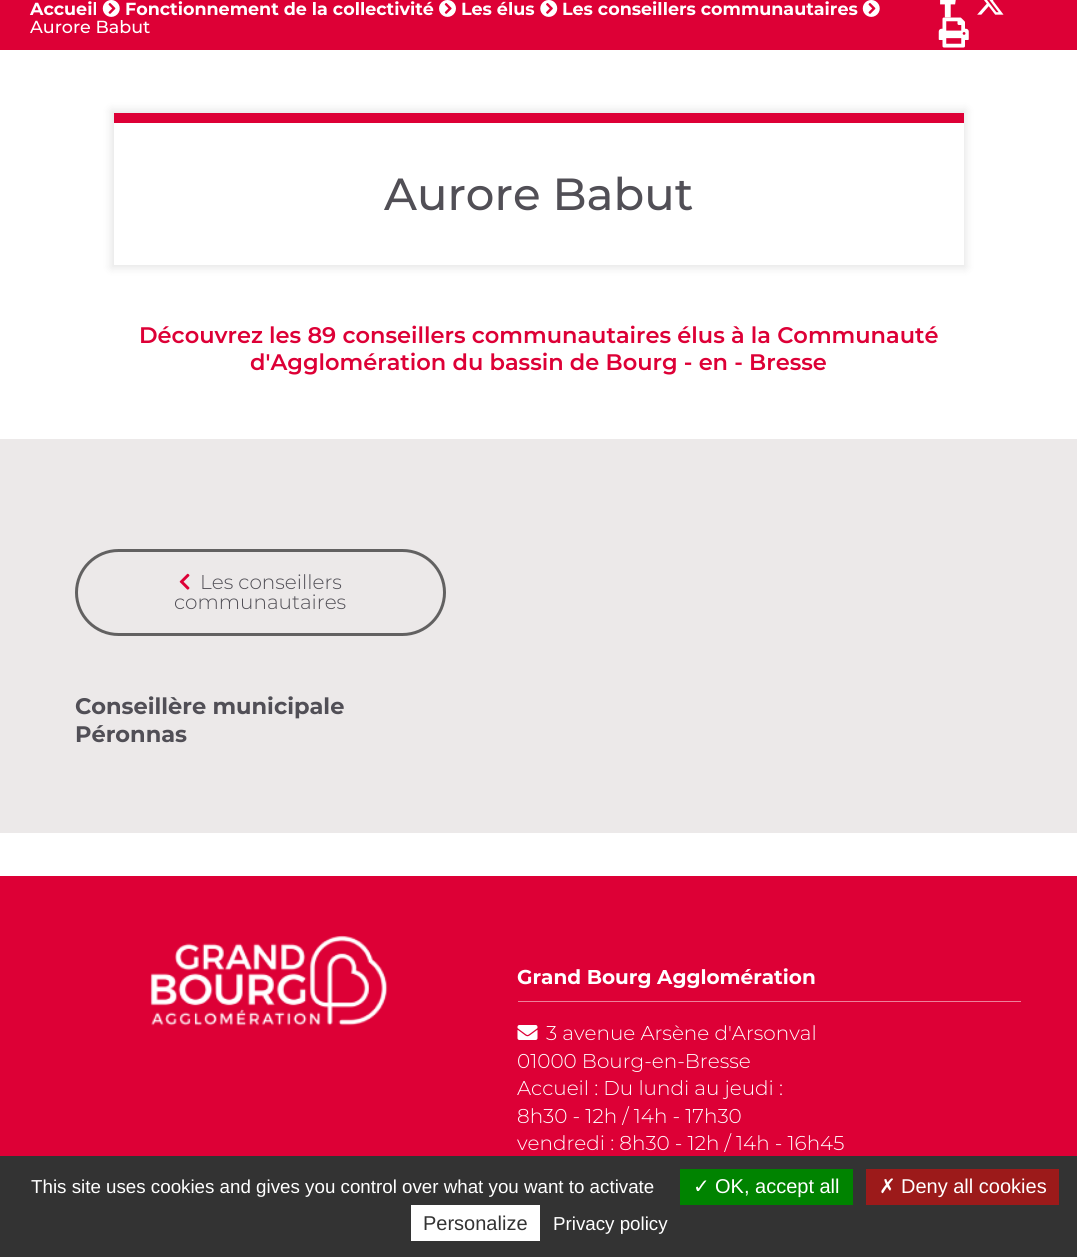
#include <cairo.h>
#include <math.h>
#include <stddef.h>


static void rgb(cairo_t *cr, int r, int g, int b)
{
	cairo_set_source_rgb(cr, r / 255.0, g / 255.0, b / 255.0);
}

static void face(cairo_t *cr, const char *family, double size, int italic, int bold)
{
	cairo_select_font_face(cr, family, italic ? CAIRO_FONT_SLANT_ITALIC : CAIRO_FONT_SLANT_NORMAL,
		bold ? CAIRO_FONT_WEIGHT_BOLD : CAIRO_FONT_WEIGHT_NORMAL);
	cairo_set_font_size(cr, size);
}

static void label(cairo_t *cr, double x, double y, const char *s)
{
	cairo_move_to(cr, x, y);
	cairo_show_text(cr, s);
}

static void rect(cairo_t *cr, double x, double y, double w, double h)
{
	cairo_rectangle(cr, x, y, w, h);
	cairo_fill(cr);
}

static void rrect(cairo_t *cr, double x, double y, double w, double h, double r)
{
	cairo_new_sub_path(cr);
	cairo_arc(cr, x + w - r, y + h - r, r, 0, M_PI / 2);
	cairo_arc(cr, x + r, y + h - r, r, M_PI / 2, M_PI);
	cairo_arc(cr, x + r, y + r, r, M_PI, 1.5 * M_PI);
	cairo_arc(cr, x + w - r, y + r, r, 1.5 * M_PI, 2 * M_PI);
	cairo_close_path(cr);
}

static void soft_shadow(cairo_t *cr, double x, double y, double w, double h, double r, double blur, double alpha)
{
	cairo_push_group_with_content(cr, CAIRO_CONTENT_ALPHA);
	cairo_set_operator(cr, CAIRO_OPERATOR_SOURCE);
	for (int i = 15; i >= -15 && fmin(w, h) + blur * i / 3 > 0; i -= 2) {
		double e = blur * i / 6;
		cairo_set_source_rgba(cr, 0, 0, 0, alpha * erfc((i - 1) / 8.5) / 2);
		rrect(cr, x - e, y - e, w + 2 * e, h + 2 * e, fmax(0, fmin(r + e + blur * .6, fmin(w, h) / 2 + e)));
		cairo_fill(cr);
	}
	cairo_pattern_t *soft = cairo_pop_group(cr);
	cairo_mask(cr, soft);
	cairo_pattern_destroy(soft);
}

static void image(cairo_t *cr, const char *path, double x, double y, double w, double h)
{
	cairo_surface_t *image = cairo_image_surface_create_from_png(path);
	cairo_save(cr);
	cairo_set_source_surface(cr, image, x, y);
	cairo_rectangle(cr, x, y, w, h);
	cairo_fill(cr);
	cairo_restore(cr);
	cairo_surface_destroy(image);
}

static void draw(cairo_t *cr) {
	rgb(cr, 255, 255, 255);
	cairo_paint(cr);
	rgb(cr, 221, 0, 54);
	rect(cr, 0, 0, 1077, 50);
	face(cr, "Montserrat", 17.5, 0, 1);
	rgb(cr, 255, 255, 255);
	label(cr, 30, 15, "Accueil");
	image(cr, "image0.png", 102, 0, 18, 17);
	label(cr, 125, 15, "Fonctionnement de la collectivité");
	image(cr, "image1.png", 439, 0, 17, 17);
	label(cr, 461, 15, "Les élus");
	image(cr, "image2.png", 540, 0, 18, 17);
	label(cr, 562, 15, "Les conseillers communautaires");
	image(cr, "image0.png", 862, 0, 18, 17);
	face(cr, "Montserrat Medium", 17.5, 0, 0);
	label(cr, 30, 33, "Aurore Babut");
	image(cr, "image3.png", 940, 0, 16, 18);
	image(cr, "image4.png", 977, 0, 27, 15);
	image(cr, "image5.png", 938, 17, 31, 31);
	rgb(cr, 0, 0, 0);
	soft_shadow(cr, 111, 110, 855, 158, 0, 4.5, 0.1);
	rgb(cr, 255, 255, 255);
	rect(cr, 114, 123, 850, 142);
	rgb(cr, 221, 0, 54);
	rect(cr, 114, 113, 850, 10);
	face(cr, "Montserrat Medium", 45, 0, 0);
	rgb(cr, 81, 79, 86);
	label(cr, 384, 210, "Aurore Babut");
	face(cr, "Montserrat SemiBold", 22.5, 0, 0);
	rgb(cr, 221, 0, 54);
	label(cr, 139, 343, "Découvrez les 89 conseillers communautaires élus à la Communauté");
	label(cr, 250, 370, "d'Agglomération du bassin de Bourg - en - Bresse");
	rgb(cr, 236, 233, 233);
	rect(cr, 0, 439, 1077, 394);
	rrect(cr, 76.5, 550.5, 368, 84, 42);
	rgb(cr, 98, 97, 97);
	cairo_set_line_width(cr, 3);
	cairo_stroke(cr);
	image(cr, "image6.png", 179, 573, 11, 17);
	face(cr, "Montserrat Light", 20, 0, 0);
	rgb(cr, 81, 79, 86);
	label(cr, 200, 589, "Les conseillers");
	label(cr, 174, 609, "communautaires");
	face(cr, "Montserrat", 22.5, 0, 1);
	label(cr, 75, 714, "Conseillère municipale");
	label(cr, 75, 742, "Péronnas");
	rgb(cr, 221, 0, 54);
	rect(cr, 0, 876, 1077, 280);
	image(cr, "image7.png", 150, 935, 238, 91);
	rgb(cr, 238, 128, 155);
	rect(cr, 518, 1001, 503, 1);
	face(cr, "Montserrat", 20, 0, 1);
	rgb(cr, 255, 255, 255);
	label(cr, 517, 984, "Grand Bourg Agglomération");
	image(cr, "image8.png", 517, 1025, 21, 15);
	face(cr, "Montserrat Light", 20, 0, 0);
	label(cr, 546, 1040, "3 avenue Arsène d'Arsonval");
	label(cr, 517, 1068, "01000 Bourg-en-Bresse");
	label(cr, 517, 1095, "Accueil : Du lundi au jeudi :");
	label(cr, 517, 1123, "8h30 - 12h / 14h - 17h30");
	label(cr, 517, 1150, "vendredi : 8h30 - 12h / 14h - 16h45");
	rgb(cr, 51, 51, 51);
	rect(cr, 0, 1156, 1077, 101);
	face(cr, "Liberation Sans", 18.75, 0, 0);
	rgb(cr, 255, 255, 255);
	label(cr, 31, 1193, "This site uses cookies and gives you control over what you want to activate");
	rgb(cr, 0, 131, 0);
	rect(cr, 680, 1169, 173, 36);
	face(cr, "DejaVu Sans", 20, 0, 0);
	rgb(cr, 255, 255, 255);
	label(cr, 693, 1193, "✓");
	face(cr, "Liberation Sans", 20, 0, 0);
	label(cr, 715, 1193, "OK, accept all");
	rgb(cr, 156, 26, 26);
	rect(cr, 866, 1169, 193, 36);
	face(cr, "DejaVu Sans", 20, 0, 0);
	rgb(cr, 255, 255, 255);
	label(cr, 879, 1193, "✗");
	face(cr, "Liberation Sans", 20, 0, 0);
	label(cr, 901, 1193, "Deny all cookies");
	rect(cr, 411, 1205, 129, 36);
	rgb(cr, 51, 51, 51);
	label(cr, 423, 1230, "Personalize");
	face(cr, "Liberation Sans", 18.75, 0, 0);
	rgb(cr, 255, 255, 255);
	label(cr, 553, 1230, "Privacy policy");
}

int main(void) {
	cairo_surface_t *surface = cairo_image_surface_create(CAIRO_FORMAT_RGB24, 1077, 1257);
	cairo_t *cr = cairo_create(surface);
	cairo_font_options_t *options = cairo_font_options_create();
	cairo_font_options_set_hint_metrics(options, CAIRO_HINT_METRICS_OFF);
	cairo_font_options_set_hint_style(options, CAIRO_HINT_STYLE_NONE);
	cairo_set_font_options(cr, options);
	cairo_set_miter_limit(cr, 4);
	draw(cr);
	cairo_surface_write_to_png(surface, "render.png");
	cairo_font_options_destroy(options);
	cairo_destroy(cr);
	cairo_surface_destroy(surface);
	return 0;
}
